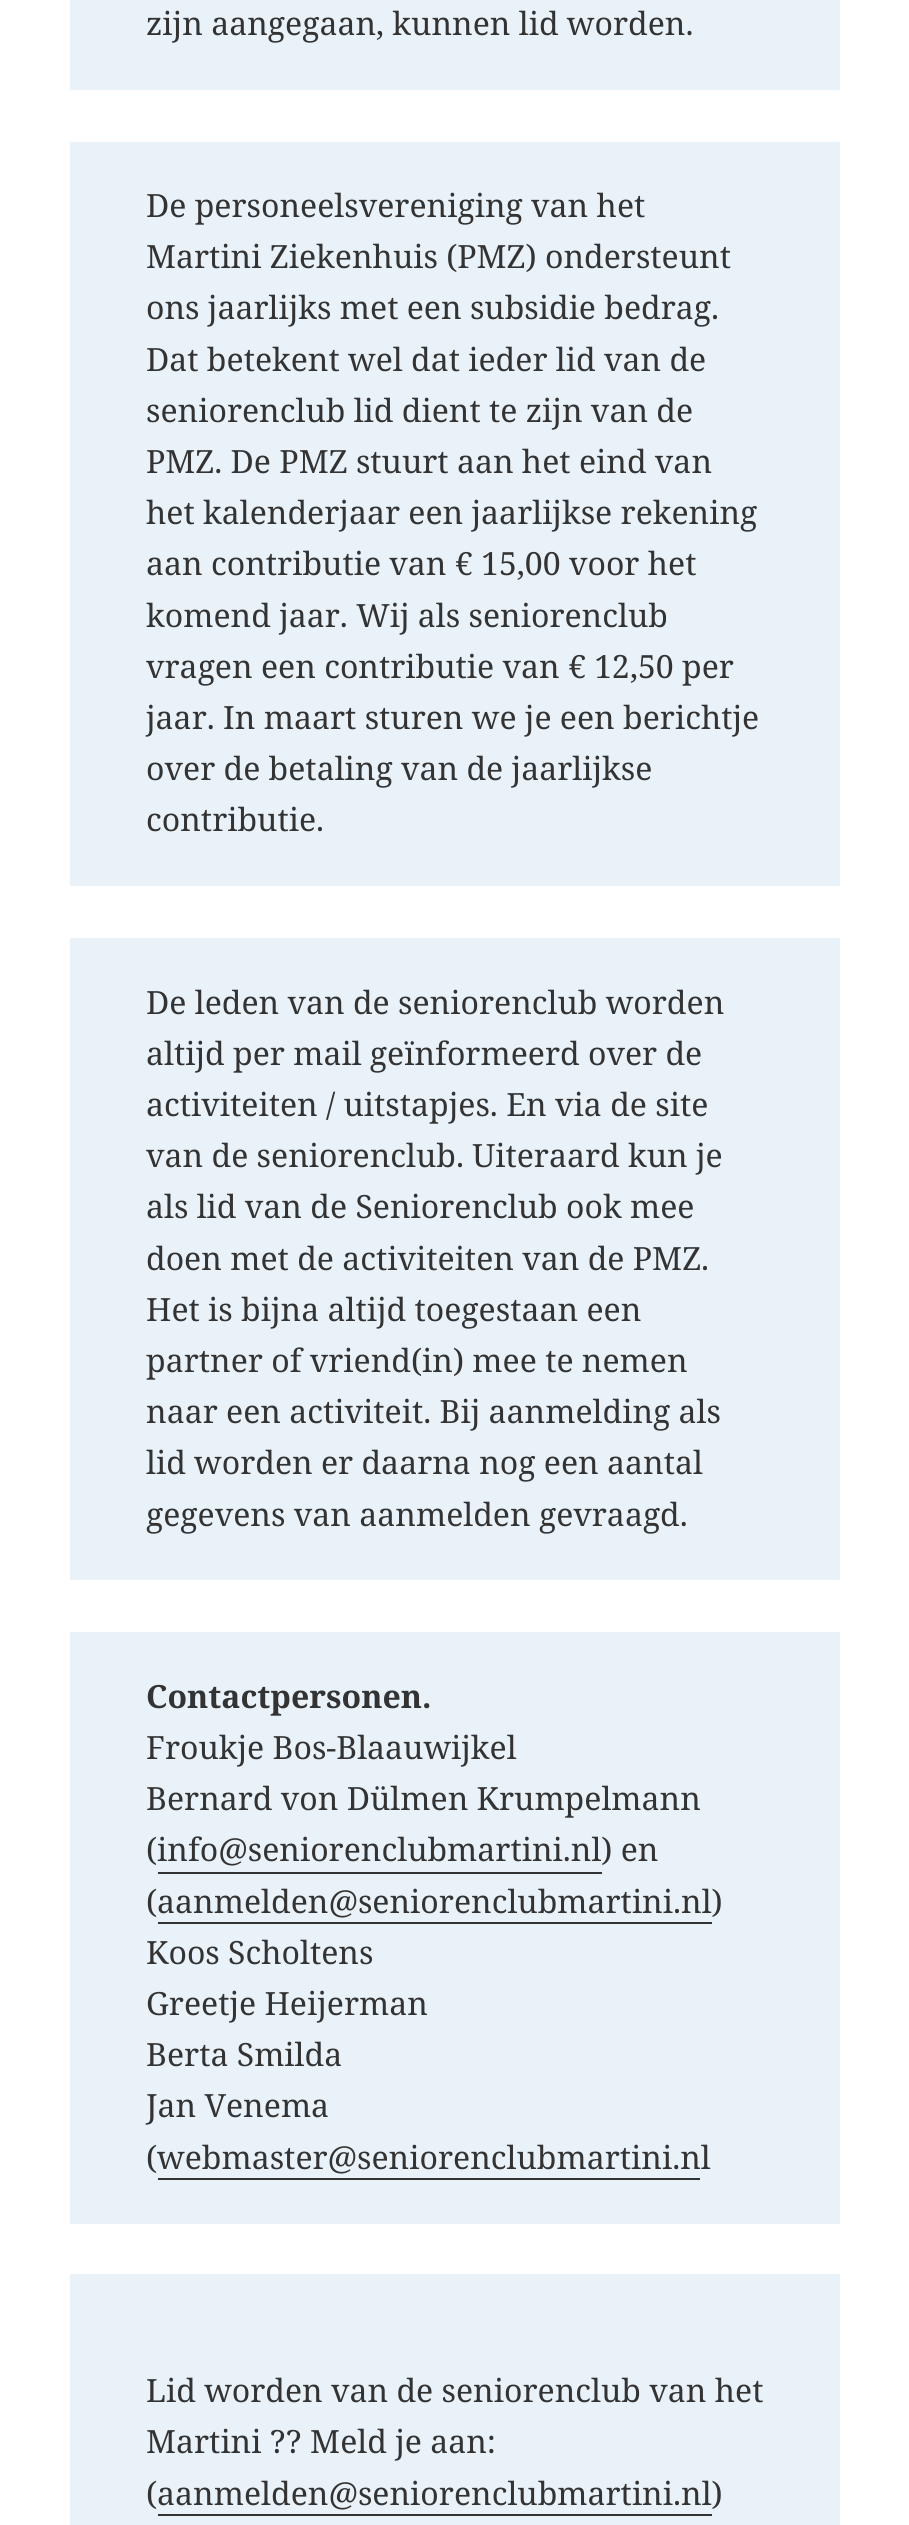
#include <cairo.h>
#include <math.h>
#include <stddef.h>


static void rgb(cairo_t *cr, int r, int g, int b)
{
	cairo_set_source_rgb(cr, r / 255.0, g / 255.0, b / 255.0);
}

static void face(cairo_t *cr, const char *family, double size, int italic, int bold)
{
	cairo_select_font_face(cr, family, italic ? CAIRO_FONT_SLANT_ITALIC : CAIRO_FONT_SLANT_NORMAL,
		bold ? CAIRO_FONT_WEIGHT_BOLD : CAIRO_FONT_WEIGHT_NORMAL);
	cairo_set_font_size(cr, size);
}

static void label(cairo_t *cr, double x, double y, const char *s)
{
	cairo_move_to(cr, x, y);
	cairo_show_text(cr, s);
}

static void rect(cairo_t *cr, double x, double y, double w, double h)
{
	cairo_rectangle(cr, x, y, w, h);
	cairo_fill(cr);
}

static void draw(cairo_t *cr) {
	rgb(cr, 255, 255, 255);
	cairo_paint(cr);
	rgb(cr, 233, 242, 249);
	rect(cr, 70, 0, 770, 90);
	face(cr, "Noto Serif", 32, 0, 0);
	rgb(cr, 51, 51, 51);
	label(cr, 146, 35, "zijn aangegaan, kunnen lid worden.");
	rgb(cr, 233, 242, 249);
	rect(cr, 70, 142, 770, 744);
	rgb(cr, 51, 51, 51);
	label(cr, 146, 217, "De personeelsvereniging van het");
	label(cr, 146, 268, "Martini Ziekenhuis (PMZ) ondersteunt");
	label(cr, 146, 319, "ons jaarlijks met een subsidie bedrag.");
	label(cr, 146, 371, "Dat betekent wel dat ieder lid van de");
	label(cr, 146, 422, "seniorenclub lid dient te zijn van de");
	label(cr, 146, 473, "PMZ. De PMZ stuurt aan het eind van");
	label(cr, 146, 524, "het kalenderjaar een jaarlijkse rekening");
	label(cr, 146, 575, "aan contributie van € 15,00 voor het");
	label(cr, 146, 627, "komend jaar. Wij als seniorenclub");
	label(cr, 146, 678, "vragen een contributie van € 12,50 per");
	label(cr, 146, 729, "jaar. In maart sturen we je een berichtje");
	label(cr, 146, 780, "over de betaling van de jaarlijkse");
	label(cr, 146, 831, "contributie.");
	rgb(cr, 233, 242, 249);
	rect(cr, 70, 938, 770, 642);
	rgb(cr, 51, 51, 51);
	label(cr, 146, 1014, "De leden van de seniorenclub worden");
	label(cr, 146, 1065, "altijd per mail geïnformeerd over de");
	label(cr, 146, 1116, "activiteiten / uitstapjes. En via de site");
	label(cr, 146, 1167, "van de seniorenclub. Uiteraard kun je");
	label(cr, 146, 1218, "als lid van de Seniorenclub ook mee");
	label(cr, 146, 1270, "doen met de activiteiten van de PMZ.");
	label(cr, 146, 1321, "Het is bijna altijd toegestaan een");
	label(cr, 146, 1372, "partner of vriend(in) mee te nemen");
	label(cr, 146, 1423, "naar een activiteit. Bij aanmelding als");
	label(cr, 146, 1474, "lid worden er daarna nog een aantal");
	label(cr, 146, 1526, "gegevens van aanmelden gevraagd.");
	rgb(cr, 233, 242, 249);
	rect(cr, 70, 1632, 770, 592);
	face(cr, "Noto Serif", 32, 0, 1);
	rgb(cr, 51, 51, 51);
	label(cr, 146, 1708, "Contactpersonen.");
	face(cr, "Noto Serif", 32, 0, 0);
	label(cr, 146, 1759, "Froukje Bos-Blaauwijkel");
	label(cr, 146, 1810, "Bernard von Dülmen Krumpelmann");
	label(cr, 146, 1861, "(info@seniorenclubmartini.nl) en");
	rect(cr, 158, 1872, 444, 2);
	label(cr, 146, 1913, "(aanmelden@seniorenclubmartini.nl)");
	rect(cr, 158, 1922, 554, 2);
	label(cr, 146, 1964, "Koos Scholtens");
	label(cr, 146, 2015, "Greetje Heijerman");
	label(cr, 146, 2066, "Berta Smilda");
	label(cr, 146, 2117, "Jan Venema");
	label(cr, 146, 2169, "(webmaster@seniorenclubmartini.nl");
	rect(cr, 158, 2178, 542, 2);
	rgb(cr, 233, 242, 249);
	rect(cr, 70, 2274, 770, 251);
	rgb(cr, 51, 51, 51);
	label(cr, 146, 2402, "Lid worden van de seniorenclub van het");
	label(cr, 146, 2453, "Martini ?\077 Meld je aan:");
	label(cr, 146, 2505, "(aanmelden@seniorenclubmartini.nl)");
	rect(cr, 158, 2514, 554, 2);
}

int main(void) {
	cairo_surface_t *surface = cairo_image_surface_create(CAIRO_FORMAT_RGB24, 909, 2525);
	cairo_t *cr = cairo_create(surface);
	cairo_font_options_t *options = cairo_font_options_create();
	cairo_font_options_set_hint_metrics(options, CAIRO_HINT_METRICS_OFF);
	cairo_font_options_set_hint_style(options, CAIRO_HINT_STYLE_NONE);
	cairo_set_font_options(cr, options);
	cairo_set_miter_limit(cr, 4);
	draw(cr);
	cairo_surface_write_to_png(surface, "render.png");
	cairo_font_options_destroy(options);
	cairo_destroy(cr);
	cairo_surface_destroy(surface);
	return 0;
}
